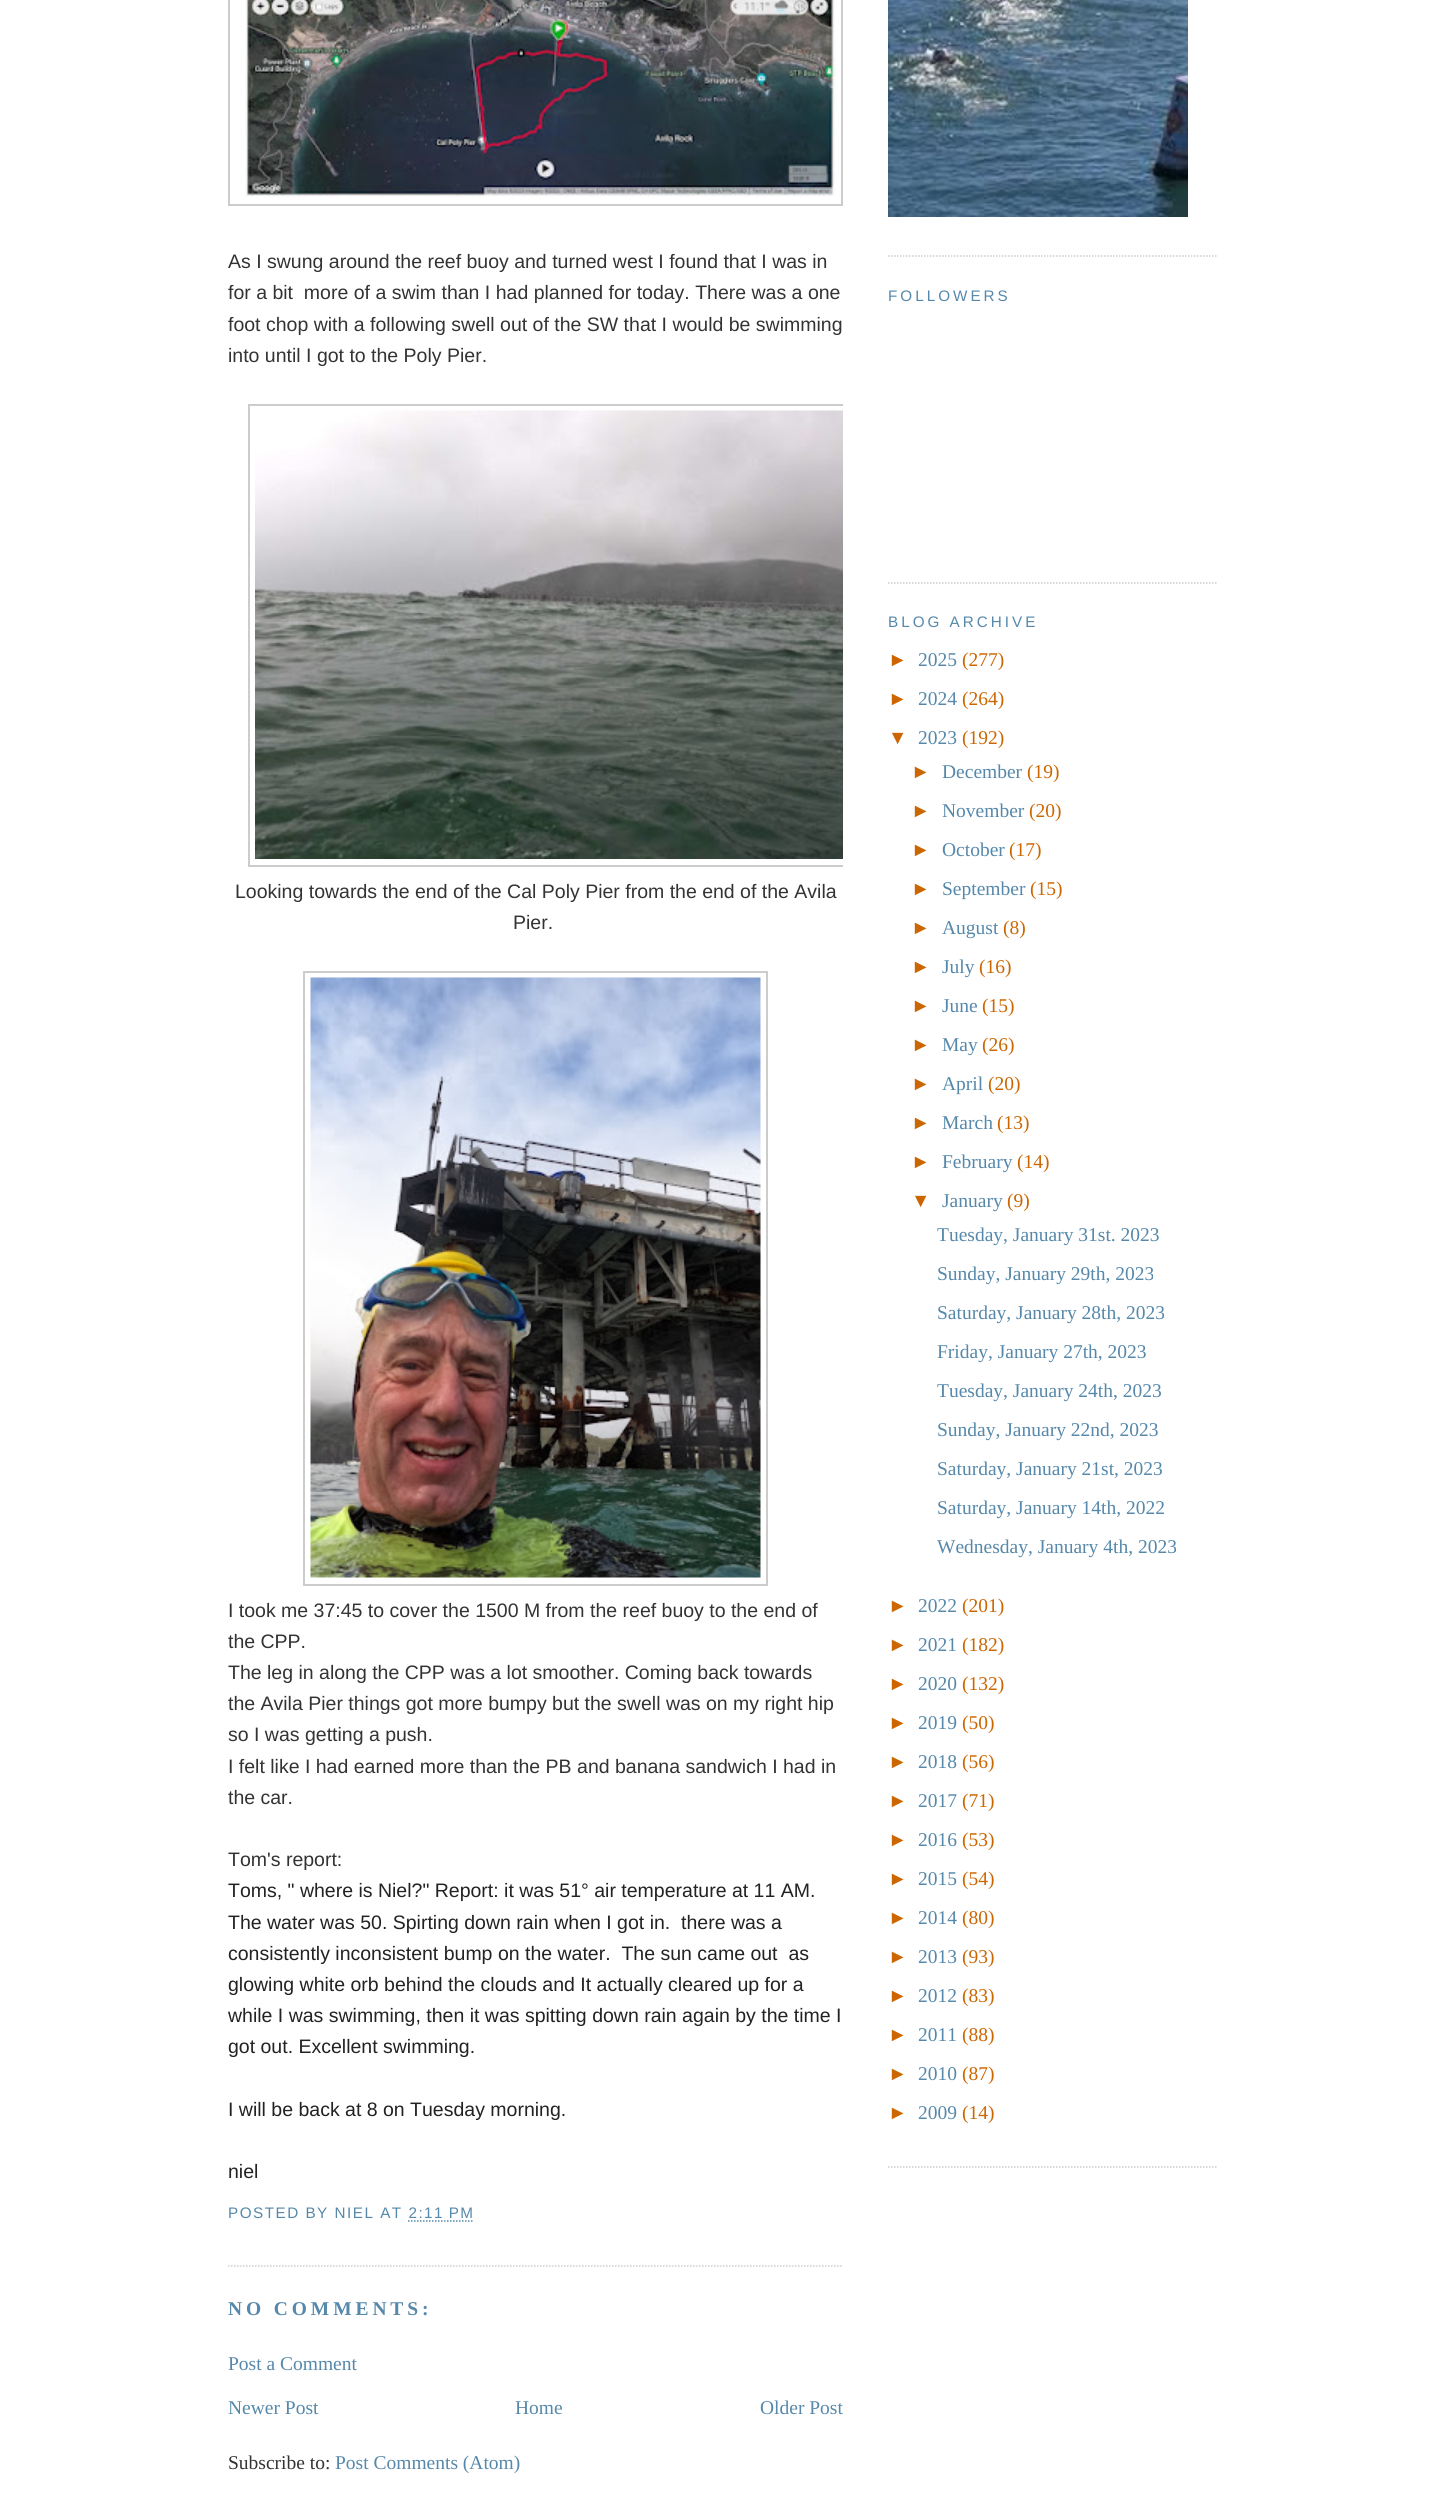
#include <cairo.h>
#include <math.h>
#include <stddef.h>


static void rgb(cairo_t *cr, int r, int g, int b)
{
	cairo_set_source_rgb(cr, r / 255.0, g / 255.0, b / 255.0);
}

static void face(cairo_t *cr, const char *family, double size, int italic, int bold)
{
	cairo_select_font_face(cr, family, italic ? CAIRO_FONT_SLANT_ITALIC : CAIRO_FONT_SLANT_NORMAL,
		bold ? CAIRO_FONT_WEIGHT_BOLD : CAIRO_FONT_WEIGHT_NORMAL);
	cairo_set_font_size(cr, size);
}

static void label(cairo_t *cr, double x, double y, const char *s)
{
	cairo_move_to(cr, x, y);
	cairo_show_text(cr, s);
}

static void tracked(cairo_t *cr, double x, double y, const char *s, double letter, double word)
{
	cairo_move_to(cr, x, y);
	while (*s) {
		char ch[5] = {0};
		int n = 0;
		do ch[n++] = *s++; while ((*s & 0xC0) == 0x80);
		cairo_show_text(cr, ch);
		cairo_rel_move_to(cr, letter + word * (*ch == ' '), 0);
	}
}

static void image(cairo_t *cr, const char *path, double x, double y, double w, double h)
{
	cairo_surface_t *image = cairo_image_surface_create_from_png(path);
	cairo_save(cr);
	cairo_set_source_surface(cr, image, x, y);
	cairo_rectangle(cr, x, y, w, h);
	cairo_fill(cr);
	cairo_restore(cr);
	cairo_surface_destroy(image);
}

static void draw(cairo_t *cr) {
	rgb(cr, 255, 255, 255);
	cairo_paint(cr);
	cairo_new_path(cr);
	cairo_move_to(cr, 228, 2266);
	cairo_line_to(cr, 843, 2266);
	rgb(cr, 204, 204, 204);
	cairo_set_line_width(cr, 1.5);
	cairo_set_dash(cr, (double[]){1.5, 1.5}, 2, 0);
	cairo_stroke(cr);
	cairo_rectangle(cr, 229, -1, 613, 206);
	cairo_set_line_width(cr, 2);
	cairo_set_dash(cr, NULL, 0, 0);
	cairo_stroke(cr);
	image(cr, "image0.png", 245, 0, 591, 197);
	face(cr, "Liberation Sans", 19.5, 0, 0);
	rgb(cr, 51, 51, 51);
	label(cr, 228, 268, "As I swung around the reef buoy and turned west I found that I was in");
	label(cr, 228, 299, "for a bit  more of a swim than I had planned for today. There was a one");
	label(cr, 228, 331, "foot chop with a following swell out of the SW that I would be swimming");
	label(cr, 228, 362, "into until I got to the Poly Pier.");
	cairo_save(cr);
	cairo_rectangle(cr, 228, 0, 615, 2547);
	cairo_clip(cr);
	cairo_rectangle(cr, 249, 405, 613, 461);
	rgb(cr, 204, 204, 204);
	cairo_stroke(cr);
	cairo_restore(cr);
	image(cr, "image1.png", 255, 410, 588, 449);
	label(cr, 235, 898, "Looking towards the end of the Cal Poly Pier from the end of the Avila");
	label(cr, 513, 929, "Pier.");
	cairo_rectangle(cr, 304, 972, 463, 613);
	rgb(cr, 204, 204, 204);
	cairo_stroke(cr);
	image(cr, "image2.png", 310, 977, 451, 601);
	rgb(cr, 51, 51, 51);
	label(cr, 228, 1617, "I took me 37:45 to cover the 1500 M from the reef buoy to the end of");
	label(cr, 228, 1648, "the CPP.");
	label(cr, 228, 1679, "The leg in along the CPP was a lot smoother. Coming back towards");
	label(cr, 228, 1710, "the Avila Pier things got more bumpy but the swell was on my right hip");
	label(cr, 228, 1741, "so I was getting a push.");
	label(cr, 228, 1773, "I felt like I had earned more than the PB and banana sandwich I had in");
	label(cr, 228, 1804, "the car.");
	label(cr, 228, 1866, "Tom's report:");
	rgb(cr, 34, 34, 34);
	label(cr, 228, 1897, "Toms, \" where is Niel?\" Report: it was 51° air temperature at 11 AM.");
	label(cr, 228, 1929, "The water was 50. Spirting down rain when I got in.  there was a");
	label(cr, 228, 1960, "consistently inconsistent bump on the water.  The sun came out  as");
	label(cr, 228, 1991, "glowing white orb behind the clouds and It actually cleared up for a");
	label(cr, 228, 2022, "while I was swimming, then it was spitting down rain again by the time I");
	label(cr, 228, 2053, "got out. Excellent swimming.");
	label(cr, 228, 2116, "I will be back at 8 on Tuesday morning.");
	label(cr, 228, 2178, "niel");
	face(cr, "Liberation Sans", 15.25, 0, 0);
	rgb(cr, 85, 136, 170);
	tracked(cr, 228, 2218, "POSTED BY NIEL AT 2:11 PM", 1.5, 0);
	cairo_new_path(cr);
	cairo_move_to(cr, 408, 2221);
	cairo_line_to(cr, 474, 2221);
	cairo_set_line_width(cr, 1.5);
	cairo_set_dash(cr, (double[]){1.5, 1.5}, 2, 0);
	cairo_stroke(cr);
	face(cr, "Liberation Serif", 19.5, 0, 1);
	tracked(cr, 228, 2315, "NO COMMENTS:", 3.9, 0);
	face(cr, "Liberation Serif", 19.5, 0, 0);
	label(cr, 228, 2370, "Post a Comment");
	label(cr, 228, 2414, "Newer Post");
	label(cr, 515, 2414, "Home");
	label(cr, 760, 2414, "Older Post");
	rgb(cr, 51, 51, 51);
	label(cr, 228, 2469, "Subscribe to:");
	rgb(cr, 85, 136, 170);
	label(cr, 335, 2469, "Post Comments (Atom)");
	cairo_new_path(cr);
	cairo_move_to(cr, 888, 256);
	cairo_line_to(cr, 1218, 256);
	rgb(cr, 204, 204, 204);
	cairo_stroke(cr);
	image(cr, "image3.png", 888, 0, 300, 217);
	cairo_new_path(cr);
	cairo_move_to(cr, 888, 583);
	cairo_line_to(cr, 1218, 583);
	cairo_stroke(cr);
	face(cr, "Liberation Sans", 15.25, 0, 0);
	rgb(cr, 85, 136, 170);
	tracked(cr, 888, 301, "FOLLOWERS", 3, 0);
	cairo_new_path(cr);
	cairo_move_to(cr, 888, 2167);
	cairo_line_to(cr, 1218, 2167);
	rgb(cr, 204, 204, 204);
	cairo_stroke(cr);
	rgb(cr, 85, 136, 170);
	tracked(cr, 888, 627, "BLOG ARCHIVE", 3, 0);
	face(cr, "Liberation Sans", 19.5, 0, 0);
	rgb(cr, 204, 102, 0);
	label(cr, 888, 666, "►");
	face(cr, "Liberation Serif", 19.5, 0, 0);
	rgb(cr, 85, 136, 170);
	label(cr, 918, 666, "2025");
	rgb(cr, 204, 102, 0);
	label(cr, 962, 666, "(277)");
	face(cr, "Liberation Sans", 19.5, 0, 0);
	label(cr, 888, 705, "►");
	face(cr, "Liberation Serif", 19.5, 0, 0);
	rgb(cr, 85, 136, 170);
	label(cr, 918, 705, "2024");
	rgb(cr, 204, 102, 0);
	label(cr, 962, 705, "(264)");
	face(cr, "Liberation Sans", 19.5, 0, 0);
	label(cr, 888, 744, "▼");
	face(cr, "Liberation Serif", 19.5, 0, 0);
	rgb(cr, 85, 136, 170);
	label(cr, 918, 744, "2023");
	rgb(cr, 204, 102, 0);
	label(cr, 962, 744, "(192)");
	face(cr, "Liberation Sans", 19.5, 0, 0);
	label(cr, 911, 778, "►");
	face(cr, "Liberation Serif", 19.5, 0, 0);
	rgb(cr, 85, 136, 170);
	label(cr, 942, 778, "December");
	rgb(cr, 204, 102, 0);
	label(cr, 1027, 778, "(19)");
	face(cr, "Liberation Sans", 19.5, 0, 0);
	label(cr, 911, 817, "►");
	face(cr, "Liberation Serif", 19.5, 0, 0);
	rgb(cr, 85, 136, 170);
	label(cr, 942, 817, "November");
	rgb(cr, 204, 102, 0);
	label(cr, 1029, 817, "(20)");
	face(cr, "Liberation Sans", 19.5, 0, 0);
	label(cr, 911, 856, "►");
	face(cr, "Liberation Serif", 19.5, 0, 0);
	rgb(cr, 85, 136, 170);
	label(cr, 942, 856, "October");
	rgb(cr, 204, 102, 0);
	label(cr, 1009, 856, "(17)");
	face(cr, "Liberation Sans", 19.5, 0, 0);
	label(cr, 911, 895, "►");
	face(cr, "Liberation Serif", 19.5, 0, 0);
	rgb(cr, 85, 136, 170);
	label(cr, 942, 895, "September");
	rgb(cr, 204, 102, 0);
	label(cr, 1030, 895, "(15)");
	face(cr, "Liberation Sans", 19.5, 0, 0);
	label(cr, 911, 934, "►");
	face(cr, "Liberation Serif", 19.5, 0, 0);
	rgb(cr, 85, 136, 170);
	label(cr, 942, 934, "August");
	rgb(cr, 204, 102, 0);
	label(cr, 1003, 934, "(8)");
	face(cr, "Liberation Sans", 19.5, 0, 0);
	label(cr, 911, 973, "►");
	face(cr, "Liberation Serif", 19.5, 0, 0);
	rgb(cr, 85, 136, 170);
	label(cr, 942, 973, "July");
	rgb(cr, 204, 102, 0);
	label(cr, 979, 973, "(16)");
	face(cr, "Liberation Sans", 19.5, 0, 0);
	label(cr, 911, 1012, "►");
	face(cr, "Liberation Serif", 19.5, 0, 0);
	rgb(cr, 85, 136, 170);
	label(cr, 942, 1012, "June");
	rgb(cr, 204, 102, 0);
	label(cr, 982, 1012, "(15)");
	face(cr, "Liberation Sans", 19.5, 0, 0);
	label(cr, 911, 1051, "►");
	face(cr, "Liberation Serif", 19.5, 0, 0);
	rgb(cr, 85, 136, 170);
	label(cr, 942, 1051, "May");
	rgb(cr, 204, 102, 0);
	label(cr, 982, 1051, "(26)");
	face(cr, "Liberation Sans", 19.5, 0, 0);
	label(cr, 911, 1090, "►");
	face(cr, "Liberation Serif", 19.5, 0, 0);
	rgb(cr, 85, 136, 170);
	label(cr, 942, 1090, "April");
	rgb(cr, 204, 102, 0);
	label(cr, 988, 1090, "(20)");
	face(cr, "Liberation Sans", 19.5, 0, 0);
	label(cr, 911, 1129, "►");
	face(cr, "Liberation Serif", 19.5, 0, 0);
	rgb(cr, 85, 136, 170);
	label(cr, 942, 1129, "March");
	rgb(cr, 204, 102, 0);
	label(cr, 997, 1129, "(13)");
	face(cr, "Liberation Sans", 19.5, 0, 0);
	label(cr, 911, 1168, "►");
	face(cr, "Liberation Serif", 19.5, 0, 0);
	rgb(cr, 85, 136, 170);
	label(cr, 942, 1168, "February");
	rgb(cr, 204, 102, 0);
	label(cr, 1017, 1168, "(14)");
	face(cr, "Liberation Sans", 19.5, 0, 0);
	label(cr, 911, 1207, "▼");
	face(cr, "Liberation Serif", 19.5, 0, 0);
	rgb(cr, 85, 136, 170);
	label(cr, 942, 1207, "January");
	rgb(cr, 204, 102, 0);
	label(cr, 1007, 1207, "(9)");
	rgb(cr, 85, 136, 170);
	label(cr, 937, 1241, "Tuesday, January 31st. 2023");
	label(cr, 937, 1280, "Sunday, January 29th, 2023");
	label(cr, 937, 1319, "Saturday, January 28th, 2023");
	label(cr, 937, 1358, "Friday, January 27th, 2023");
	label(cr, 937, 1397, "Tuesday, January 24th, 2023");
	label(cr, 937, 1436, "Sunday, January 22nd, 2023");
	label(cr, 937, 1475, "Saturday, January 21st, 2023");
	label(cr, 937, 1514, "Saturday, January 14th, 2022");
	label(cr, 937, 1553, "Wednesday, January 4th, 2023");
	face(cr, "Liberation Sans", 19.5, 0, 0);
	rgb(cr, 204, 102, 0);
	label(cr, 888, 1612, "►");
	face(cr, "Liberation Serif", 19.5, 0, 0);
	rgb(cr, 85, 136, 170);
	label(cr, 918, 1612, "2022");
	rgb(cr, 204, 102, 0);
	label(cr, 962, 1612, "(201)");
	face(cr, "Liberation Sans", 19.5, 0, 0);
	label(cr, 888, 1651, "►");
	face(cr, "Liberation Serif", 19.5, 0, 0);
	rgb(cr, 85, 136, 170);
	label(cr, 918, 1651, "2021");
	rgb(cr, 204, 102, 0);
	label(cr, 962, 1651, "(182)");
	face(cr, "Liberation Sans", 19.5, 0, 0);
	label(cr, 888, 1690, "►");
	face(cr, "Liberation Serif", 19.5, 0, 0);
	rgb(cr, 85, 136, 170);
	label(cr, 918, 1690, "2020");
	rgb(cr, 204, 102, 0);
	label(cr, 962, 1690, "(132)");
	face(cr, "Liberation Sans", 19.5, 0, 0);
	label(cr, 888, 1729, "►");
	face(cr, "Liberation Serif", 19.5, 0, 0);
	rgb(cr, 85, 136, 170);
	label(cr, 918, 1729, "2019");
	rgb(cr, 204, 102, 0);
	label(cr, 962, 1729, "(50)");
	face(cr, "Liberation Sans", 19.5, 0, 0);
	label(cr, 888, 1768, "►");
	face(cr, "Liberation Serif", 19.5, 0, 0);
	rgb(cr, 85, 136, 170);
	label(cr, 918, 1768, "2018");
	rgb(cr, 204, 102, 0);
	label(cr, 962, 1768, "(56)");
	face(cr, "Liberation Sans", 19.5, 0, 0);
	label(cr, 888, 1807, "►");
	face(cr, "Liberation Serif", 19.5, 0, 0);
	rgb(cr, 85, 136, 170);
	label(cr, 918, 1807, "2017");
	rgb(cr, 204, 102, 0);
	label(cr, 962, 1807, "(71)");
	face(cr, "Liberation Sans", 19.5, 0, 0);
	label(cr, 888, 1846, "►");
	face(cr, "Liberation Serif", 19.5, 0, 0);
	rgb(cr, 85, 136, 170);
	label(cr, 918, 1846, "2016");
	rgb(cr, 204, 102, 0);
	label(cr, 962, 1846, "(53)");
	face(cr, "Liberation Sans", 19.5, 0, 0);
	label(cr, 888, 1885, "►");
	face(cr, "Liberation Serif", 19.5, 0, 0);
	rgb(cr, 85, 136, 170);
	label(cr, 918, 1885, "2015");
	rgb(cr, 204, 102, 0);
	label(cr, 962, 1885, "(54)");
	face(cr, "Liberation Sans", 19.5, 0, 0);
	label(cr, 888, 1924, "►");
	face(cr, "Liberation Serif", 19.5, 0, 0);
	rgb(cr, 85, 136, 170);
	label(cr, 918, 1924, "2014");
	rgb(cr, 204, 102, 0);
	label(cr, 962, 1924, "(80)");
	face(cr, "Liberation Sans", 19.5, 0, 0);
	label(cr, 888, 1963, "►");
	face(cr, "Liberation Serif", 19.5, 0, 0);
	rgb(cr, 85, 136, 170);
	label(cr, 918, 1963, "2013");
	rgb(cr, 204, 102, 0);
	label(cr, 962, 1963, "(93)");
	face(cr, "Liberation Sans", 19.5, 0, 0);
	label(cr, 888, 2002, "►");
	face(cr, "Liberation Serif", 19.5, 0, 0);
	rgb(cr, 85, 136, 170);
	label(cr, 918, 2002, "2012");
	rgb(cr, 204, 102, 0);
	label(cr, 962, 2002, "(83)");
	face(cr, "Liberation Sans", 19.5, 0, 0);
	label(cr, 888, 2041, "►");
	face(cr, "Liberation Serif", 19.5, 0, 0);
	rgb(cr, 85, 136, 170);
	label(cr, 918, 2041, "2011");
	rgb(cr, 204, 102, 0);
	label(cr, 962, 2041, "(88)");
	face(cr, "Liberation Sans", 19.5, 0, 0);
	label(cr, 888, 2080, "►");
	face(cr, "Liberation Serif", 19.5, 0, 0);
	rgb(cr, 85, 136, 170);
	label(cr, 918, 2080, "2010");
	rgb(cr, 204, 102, 0);
	label(cr, 962, 2080, "(87)");
	face(cr, "Liberation Sans", 19.5, 0, 0);
	label(cr, 888, 2119, "►");
	face(cr, "Liberation Serif", 19.5, 0, 0);
	rgb(cr, 85, 136, 170);
	label(cr, 918, 2119, "2009");
	rgb(cr, 204, 102, 0);
	label(cr, 962, 2119, "(14)");
}

int main(void) {
	cairo_surface_t *surface = cairo_image_surface_create(CAIRO_FORMAT_RGB24, 1446, 2507);
	cairo_t *cr = cairo_create(surface);
	cairo_font_options_t *options = cairo_font_options_create();
	cairo_font_options_set_hint_metrics(options, CAIRO_HINT_METRICS_OFF);
	cairo_font_options_set_hint_style(options, CAIRO_HINT_STYLE_NONE);
	cairo_set_font_options(cr, options);
	cairo_set_miter_limit(cr, 4);
	draw(cr);
	cairo_surface_write_to_png(surface, "render.png");
	cairo_font_options_destroy(options);
	cairo_destroy(cr);
	cairo_surface_destroy(surface);
	return 0;
}
